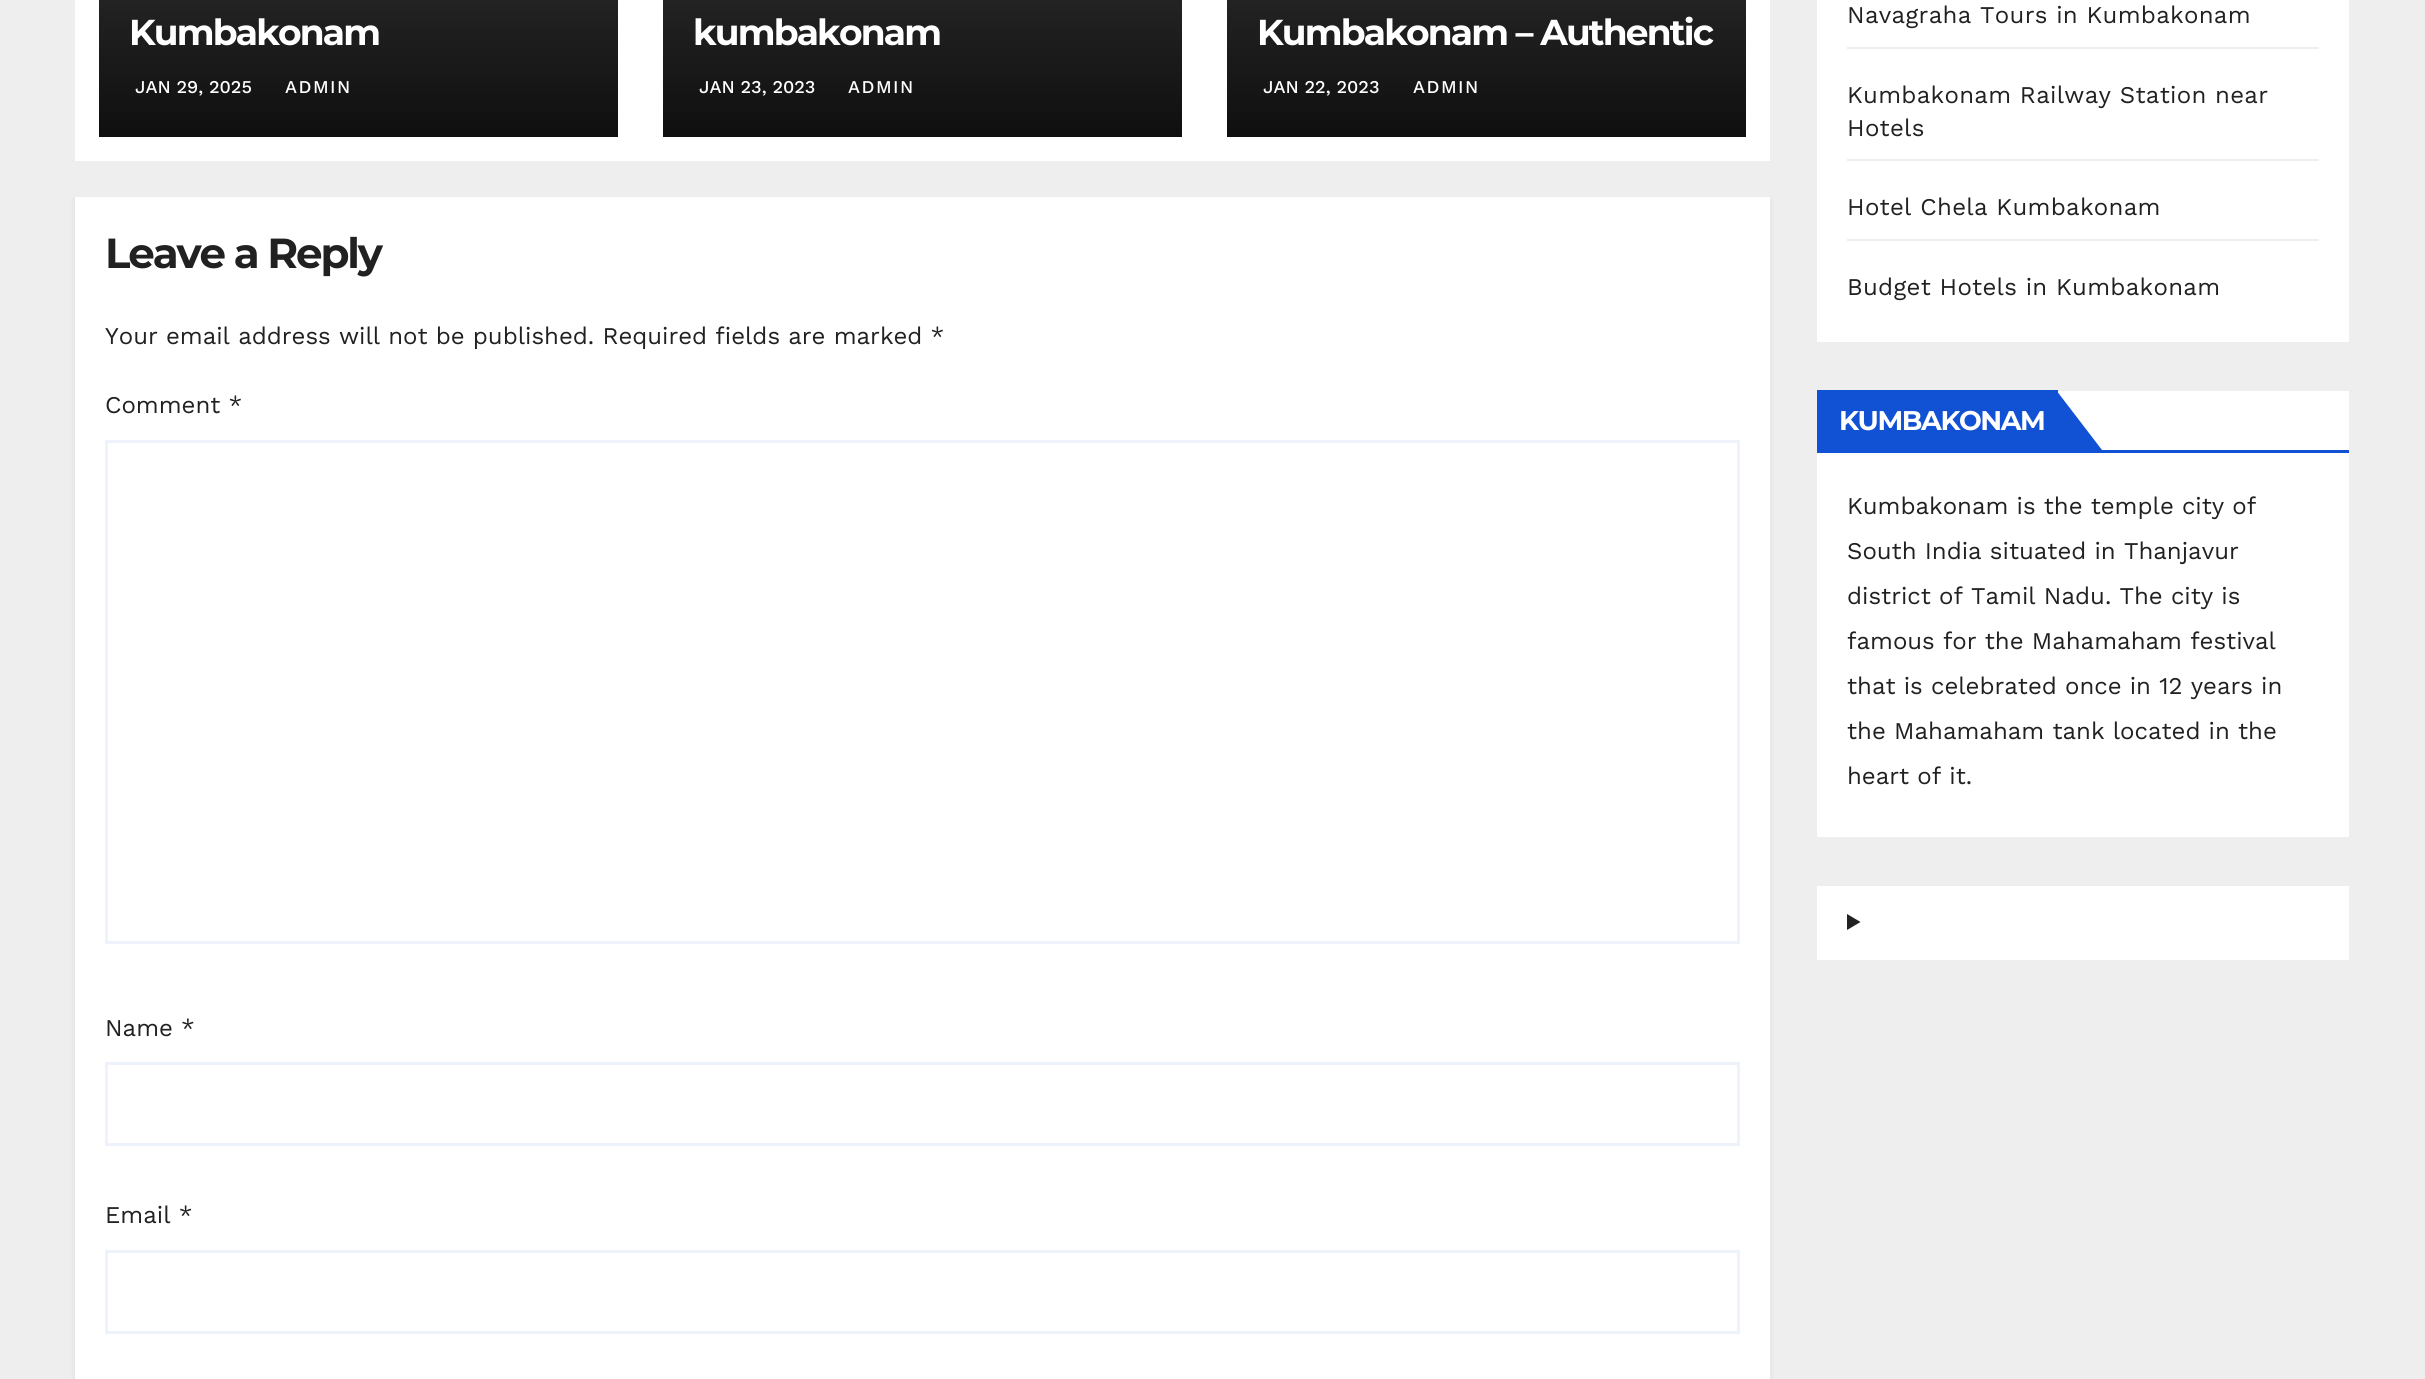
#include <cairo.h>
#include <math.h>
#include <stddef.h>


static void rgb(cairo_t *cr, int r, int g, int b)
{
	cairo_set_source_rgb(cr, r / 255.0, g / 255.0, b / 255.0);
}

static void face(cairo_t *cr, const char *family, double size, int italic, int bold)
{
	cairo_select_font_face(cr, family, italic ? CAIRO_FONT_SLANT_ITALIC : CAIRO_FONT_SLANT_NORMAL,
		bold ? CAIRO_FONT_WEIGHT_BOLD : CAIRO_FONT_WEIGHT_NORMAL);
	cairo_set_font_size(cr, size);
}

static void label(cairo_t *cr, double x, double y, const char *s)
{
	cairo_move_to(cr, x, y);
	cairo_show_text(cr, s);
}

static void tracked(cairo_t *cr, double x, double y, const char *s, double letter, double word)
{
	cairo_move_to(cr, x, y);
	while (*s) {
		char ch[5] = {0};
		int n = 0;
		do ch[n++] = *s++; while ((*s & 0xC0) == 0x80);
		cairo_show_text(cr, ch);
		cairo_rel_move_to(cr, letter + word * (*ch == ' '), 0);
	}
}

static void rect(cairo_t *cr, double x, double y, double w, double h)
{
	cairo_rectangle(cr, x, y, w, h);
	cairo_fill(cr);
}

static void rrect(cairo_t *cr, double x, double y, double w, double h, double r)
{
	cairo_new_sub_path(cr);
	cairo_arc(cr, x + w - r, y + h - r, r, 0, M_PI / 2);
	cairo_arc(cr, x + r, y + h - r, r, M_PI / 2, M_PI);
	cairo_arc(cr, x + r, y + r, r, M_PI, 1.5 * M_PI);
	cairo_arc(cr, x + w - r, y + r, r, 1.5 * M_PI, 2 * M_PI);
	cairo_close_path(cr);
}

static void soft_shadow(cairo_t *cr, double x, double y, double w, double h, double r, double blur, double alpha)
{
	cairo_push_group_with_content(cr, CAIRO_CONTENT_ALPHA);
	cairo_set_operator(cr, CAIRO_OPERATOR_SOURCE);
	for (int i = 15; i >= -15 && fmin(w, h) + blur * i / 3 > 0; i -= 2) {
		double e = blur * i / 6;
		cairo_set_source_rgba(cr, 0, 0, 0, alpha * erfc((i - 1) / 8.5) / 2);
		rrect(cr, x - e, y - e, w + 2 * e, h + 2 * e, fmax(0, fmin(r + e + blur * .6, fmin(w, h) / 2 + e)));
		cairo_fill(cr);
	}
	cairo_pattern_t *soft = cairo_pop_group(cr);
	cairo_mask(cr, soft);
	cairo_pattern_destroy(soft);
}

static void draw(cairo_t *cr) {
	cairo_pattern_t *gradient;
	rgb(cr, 238, 238, 238);
	cairo_paint(cr);
	rgb(cr, 255, 255, 255);
	rect(cr, 75, 0, 1695, 161);
	gradient = cairo_pattern_create_linear(359, -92, 359, 137);
	cairo_pattern_add_color_stop_rgba(gradient, 0, 0.2, 0.2, 0.2, 1);
	cairo_pattern_add_color_stop_rgba(gradient, 0.5, 0.122, 0.122, 0.122, 1);
	cairo_pattern_add_color_stop_rgba(gradient, 1, 0.059, 0.059, 0.059, 1);
	cairo_set_source(cr, gradient);
	cairo_pattern_destroy(gradient);
	rect(cr, 99, 0, 519, 137);
	face(cr, "Montserrat", 36, 0, 1);
	rgb(cr, 255, 255, 255);
	tracked(cr, 129, 45, "Kumbakonam", -1.8, 0);
	face(cr, "Work Sans Medium", 18, 0, 0);
	label(cr, 135, 93, "JAN 29, 2025");
	tracked(cr, 285, 93, "ADMIN", 1.5, 0);
	gradient = cairo_pattern_create_linear(923, -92, 923, 137);
	cairo_pattern_add_color_stop_rgba(gradient, 0, 0.2, 0.2, 0.2, 1);
	cairo_pattern_add_color_stop_rgba(gradient, 0.5, 0.122, 0.122, 0.122, 1);
	cairo_pattern_add_color_stop_rgba(gradient, 1, 0.059, 0.059, 0.059, 1);
	cairo_set_source(cr, gradient);
	cairo_pattern_destroy(gradient);
	rect(cr, 663, 0, 519, 137);
	face(cr, "Montserrat", 36, 0, 1);
	rgb(cr, 255, 255, 255);
	tracked(cr, 693, 45, "kumbakonam", -1.8, 0);
	face(cr, "Work Sans Medium", 18, 0, 0);
	label(cr, 699, 93, "JAN 23, 2023");
	tracked(cr, 848, 93, "ADMIN", 1.5, 0);
	gradient = cairo_pattern_create_linear(1487, -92, 1487, 137);
	cairo_pattern_add_color_stop_rgba(gradient, 0, 0.2, 0.2, 0.2, 1);
	cairo_pattern_add_color_stop_rgba(gradient, 0.5, 0.122, 0.122, 0.122, 1);
	cairo_pattern_add_color_stop_rgba(gradient, 1, 0.059, 0.059, 0.059, 1);
	cairo_set_source(cr, gradient);
	cairo_pattern_destroy(gradient);
	rect(cr, 1227, 0, 519, 137);
	face(cr, "Montserrat", 36, 0, 1);
	rgb(cr, 255, 255, 255);
	tracked(cr, 1257, 45, "Kumbakonam – Authentic", -1.8, 0);
	face(cr, "Work Sans Medium", 18, 0, 0);
	label(cr, 1263, 93, "JAN 22, 2023");
	tracked(cr, 1413, 93, "ADMIN", 1.5, 0);
	rgb(cr, 0, 0, 0);
	soft_shadow(cr, 75, 200, 1695, 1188, 0, 3, 0.08);
	rgb(cr, 255, 255, 255);
	rect(cr, 75, 197, 1695, 1182);
	face(cr, "Montserrat", 42, 0, 1);
	rgb(cr, 33, 33, 33);
	tracked(cr, 105, 268, "Leave a Reply", -2.1, 0);
	face(cr, "Work Sans", 24, 0, 0);
	label(cr, 105, 344, "Your email address will not be published. Required fields are marked *");
	label(cr, 105, 413, "Comment *");
	cairo_rectangle(cr, 106.5, 441.5, 1632, 501);
	rgb(cr, 238, 243, 251);
	cairo_set_line_width(cr, 3);
	cairo_stroke(cr);
	rgb(cr, 33, 33, 33);
	label(cr, 105, 1036, "Name *");
	cairo_rectangle(cr, 106.5, 1063.5, 1632, 81);
	rgb(cr, 238, 243, 251);
	cairo_stroke(cr);
	rgb(cr, 33, 33, 33);
	label(cr, 105, 1223, "Email *");
	cairo_rectangle(cr, 106.5, 1251.5, 1632, 81);
	rgb(cr, 238, 243, 251);
	cairo_stroke(cr);
	rgb(cr, 255, 255, 255);
	rect(cr, 1817, 0, 532, 342);
	rgb(cr, 238, 238, 238);
	rect(cr, 1847, 47, 472, 2);
	rgb(cr, 33, 33, 33);
	tracked(cr, 1847, 23, "Navagraha Tours in Kumbakonam", 0.3, 0);
	rgb(cr, 238, 238, 238);
	rect(cr, 1847, 159, 472, 2);
	rgb(cr, 33, 33, 33);
	tracked(cr, 1847, 103, "Kumbakonam Railway Station near", 0.3, 0);
	tracked(cr, 1847, 136, "Hotels", 0.3, 0);
	rgb(cr, 238, 238, 238);
	rect(cr, 1847, 239, 472, 2);
	rgb(cr, 33, 33, 33);
	tracked(cr, 1847, 215, "Hotel Chela Kumbakonam", 0.3, 0);
	tracked(cr, 1847, 295, "Budget Hotels in Kumbakonam", 0.3, 0);
	rgb(cr, 255, 255, 255);
	rect(cr, 1817, 391, 532, 446);
	rgb(cr, 17, 81, 211);
	rect(cr, 1817, 450, 532, 3);
	rect(cr, 1817, 390, 241, 60);
	face(cr, "Montserrat", 27, 0, 1);
	rgb(cr, 255, 255, 255);
	tracked(cr, 1839, 430, "KUMBAKONAM", -1.4, 0);
	rgb(cr, 17, 81, 211);
	cairo_new_path(cr);
	cairo_move_to(cr, 2056, 450);
	cairo_line_to(cr, 2056, 390);
	cairo_line_to(cr, 2102, 450);
	cairo_close_path(cr);
	cairo_fill(cr);
	face(cr, "Work Sans", 24, 0, 0);
	rgb(cr, 33, 33, 33);
	label(cr, 1847, 514, "Kumbakonam is the temple city of");
	label(cr, 1847, 559, "South India situated in Thanjavur");
	label(cr, 1847, 604, "district of Tamil Nadu. The city is");
	label(cr, 1847, 649, "famous for the Mahamaham festival");
	label(cr, 1847, 694, "that is celebrated once in 12 years in");
	label(cr, 1847, 739, "the Mahamaham tank located in the");
	label(cr, 1847, 784, "heart of it.");
	rgb(cr, 255, 255, 255);
	rect(cr, 1817, 886, 532, 74);
	rgb(cr, 34, 34, 34);
	cairo_new_path(cr);
	cairo_move_to(cr, 1847, 914);
	cairo_line_to(cr, 1860.5, 922);
	cairo_line_to(cr, 1847, 930);
	cairo_close_path(cr);
	cairo_fill(cr);
}

int main(void) {
	cairo_surface_t *surface = cairo_image_surface_create(CAIRO_FORMAT_RGB24, 2425, 1379);
	cairo_t *cr = cairo_create(surface);
	cairo_font_options_t *options = cairo_font_options_create();
	cairo_font_options_set_hint_metrics(options, CAIRO_HINT_METRICS_OFF);
	cairo_font_options_set_hint_style(options, CAIRO_HINT_STYLE_NONE);
	cairo_set_font_options(cr, options);
	cairo_set_miter_limit(cr, 4);
	draw(cr);
	cairo_surface_write_to_png(surface, "render.png");
	cairo_font_options_destroy(options);
	cairo_destroy(cr);
	cairo_surface_destroy(surface);
	return 0;
}
